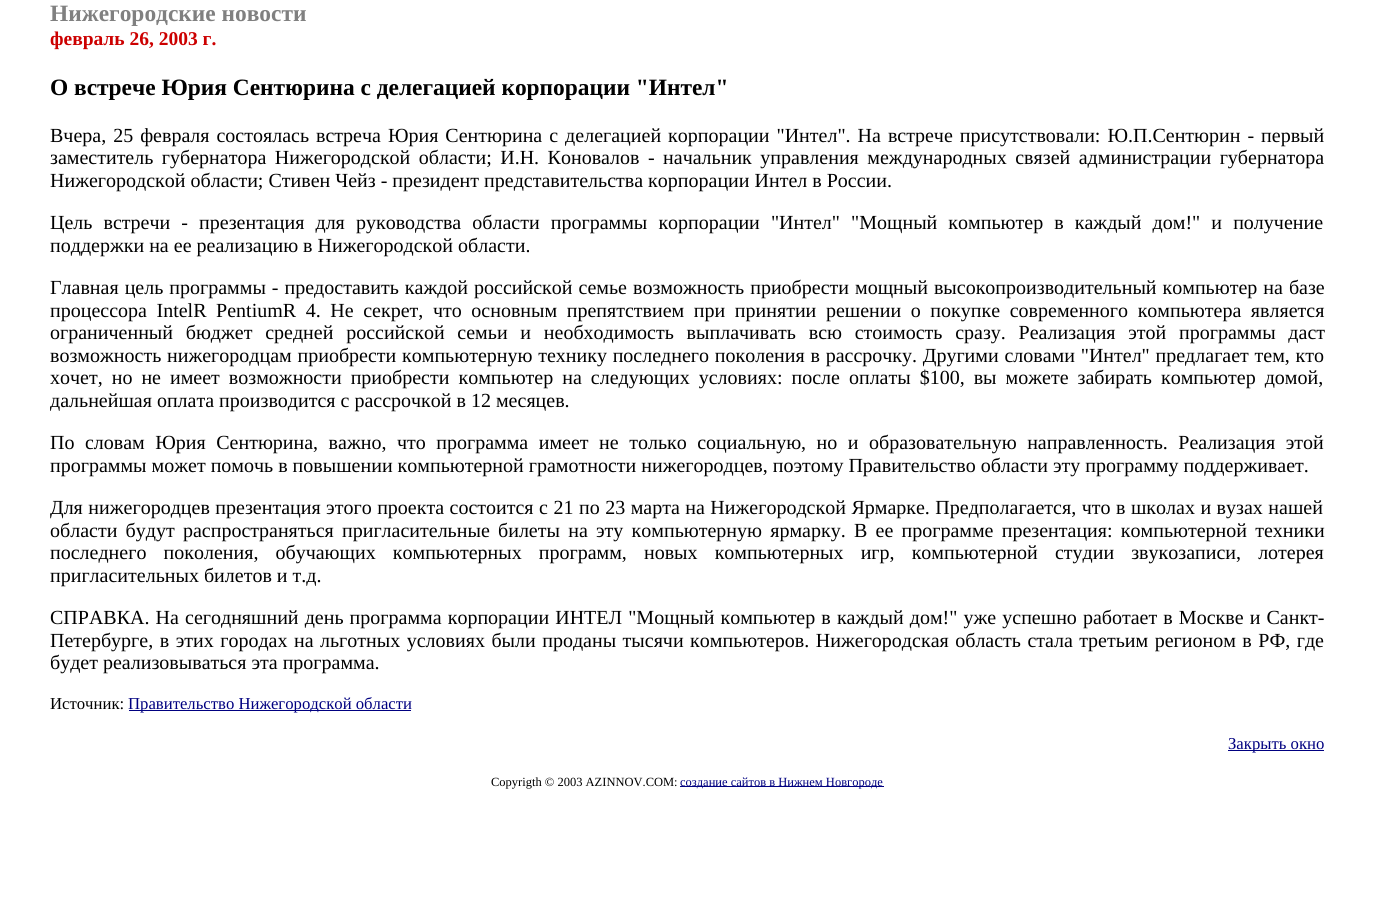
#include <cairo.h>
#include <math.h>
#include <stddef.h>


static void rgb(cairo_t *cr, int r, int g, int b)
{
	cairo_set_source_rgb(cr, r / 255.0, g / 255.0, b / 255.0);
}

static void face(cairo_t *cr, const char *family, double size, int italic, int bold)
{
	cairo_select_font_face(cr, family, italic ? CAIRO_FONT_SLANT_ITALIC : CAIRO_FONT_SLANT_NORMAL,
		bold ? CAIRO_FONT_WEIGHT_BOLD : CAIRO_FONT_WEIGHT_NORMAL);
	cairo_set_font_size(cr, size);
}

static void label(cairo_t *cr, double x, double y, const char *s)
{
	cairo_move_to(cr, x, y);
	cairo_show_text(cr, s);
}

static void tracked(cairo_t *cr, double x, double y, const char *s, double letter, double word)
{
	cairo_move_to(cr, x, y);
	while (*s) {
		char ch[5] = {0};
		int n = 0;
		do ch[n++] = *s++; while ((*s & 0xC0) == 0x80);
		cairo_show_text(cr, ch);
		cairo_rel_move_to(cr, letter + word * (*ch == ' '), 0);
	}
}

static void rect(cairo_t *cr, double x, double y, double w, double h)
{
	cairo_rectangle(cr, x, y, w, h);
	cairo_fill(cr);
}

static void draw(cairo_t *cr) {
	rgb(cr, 255, 255, 255);
	cairo_paint(cr);
	face(cr, "Liberation Serif", 23.4, 0, 1);
	rgb(cr, 128, 128, 128);
	label(cr, 50, 21, "Нижегородские новости");
	face(cr, "Liberation Serif", 19.5, 0, 1);
	rgb(cr, 204, 0, 0);
	label(cr, 50, 45, "февраль 26, 2003 г.");
	face(cr, "Liberation Serif", 23.4, 0, 1);
	rgb(cr, 0, 0, 0);
	label(cr, 50, 95, "О встрече Юрия Сентюрина с делегацией корпорации \"Интел\"");
	face(cr, "Liberation Serif", 20, 0, 0);
	tracked(cr, 50, 142, "Вчера, 25 февраля состоялась встреча Юрия Сентюрина с делегацией корпорации \"Интел\". На встрече присутствовали: Ю.П.Сентюрин - первый", 0, 2);
	tracked(cr, 50, 164, "заместитель губернатора Нижегородской области; И.Н. Коновалов - начальник управления международных связей администрации губернатора", 0, 3.5);
	label(cr, 50, 187, "Нижегородской области; Стивен Чейз - президент представительства корпорации Интел в России.");
	tracked(cr, 50, 229, "Цель встречи - презентация для руководства области программы корпорации \"Интел\" \"Мощный компьютер в каждый дом!\" и получение", 0, 6.1);
	label(cr, 50, 252, "поддержки на ее реализацию в Нижегородской области.");
	tracked(cr, 50, 294, "Главная цель программы - предоставить каждой российской семье возможность приобрести мощный высокопроизводительный компьютер на базе", 0, 1);
	tracked(cr, 50, 317, "процессора IntelR PentiumR 4. Не секрет, что основным препятствием при принятии решении о покупке современного компьютера является", 0, 4.6);
	tracked(cr, 50, 339, "ограниченный бюджет средней российской семьи и необходимость выплачивать всю стоимость сразу. Реализация этой программы даст", 0, 7.75);
	tracked(cr, 50, 362, "возможность нижегородцам приобрести компьютерную технику последнего поколения в рассрочку. Другими словами \"Интел\" предлагает тем, кто", 0, 0.75);
	tracked(cr, 50, 384, "хочет, но не имеет возможности приобрести компьютер на следующих условиях: после оплаты $100, вы можете забирать компьютер домой,", 0, 4);
	label(cr, 50, 407, "дальнейшая оплата производится с рассрочкой в 12 месяцев.");
	tracked(cr, 50, 449, "По словам Юрия Сентюрина, важно, что программа имеет не только социальную, но и образовательную направленность. Реализация этой", 0, 5.5);
	label(cr, 50, 472, "программы может помочь в повышении компьютерной грамотности нижегородцев, поэтому Правительство области эту программу поддерживает.");
	tracked(cr, 50, 514, "Для нижегородцев презентация этого проекта состоится с 21 по 23 марта на Нижегородской Ярмарке. Предполагается, что в школах и вузах нашей", 0, 0.5);
	tracked(cr, 50, 537, "области будут распространяться пригласительные билеты на эту компьютерную ярмарку. В ее программе презентация: компьютерной техники", 0, 3.25);
	tracked(cr, 50, 559, "последнего поколения, обучающих компьютерных программ, новых компьютерных игр, компьютерной студии звукозаписи, лотерея", 0, 12.1);
	label(cr, 50, 582, "пригласительных билетов и т.д.");
	tracked(cr, 50, 624, "СПРАВКА. На сегодняшний день программа корпорации ИНТЕЛ \"Мощный компьютер в каждый дом!\" уже успешно работает в Москве и Санкт-", 0, 1.1);
	tracked(cr, 50, 647, "Петербурге, в этих городах на льготных условиях были проданы тысячи компьютеров. Нижегородская область стала третьим регионом в РФ, где", 0, 1.5);
	label(cr, 50, 669, "будет реализовываться эта программа.");
	face(cr, "Liberation Serif", 16.7, 0, 0);
	label(cr, 50, 709, "Источник:");
	rgb(cr, 0, 0, 128);
	rect(cr, 129, 710, 282, 1);
	label(cr, 128, 709, "Правительство Нижегородской области");
	rect(cr, 1228, 750, 96, 1);
	label(cr, 1228, 749, "Закрыть окно");
	face(cr, "Liberation Serif", 12.5, 0, 0);
	rgb(cr, 0, 0, 0);
	label(cr, 491, 786, "Copyrigth © 2003 AZINNOV.COM:");
	rgb(cr, 0, 0, 128);
	rect(cr, 680, 786, 204, 1);
	label(cr, 680, 786, "создание сайтов в Нижнем Новгороде");
}

int main(void) {
	cairo_surface_t *surface = cairo_image_surface_create(CAIRO_FORMAT_RGB24, 1373, 910);
	cairo_t *cr = cairo_create(surface);
	cairo_font_options_t *options = cairo_font_options_create();
	cairo_font_options_set_hint_metrics(options, CAIRO_HINT_METRICS_OFF);
	cairo_font_options_set_hint_style(options, CAIRO_HINT_STYLE_NONE);
	cairo_set_font_options(cr, options);
	cairo_set_miter_limit(cr, 4);
	draw(cr);
	cairo_surface_write_to_png(surface, "render.png");
	cairo_font_options_destroy(options);
	cairo_destroy(cr);
	cairo_surface_destroy(surface);
	return 0;
}
